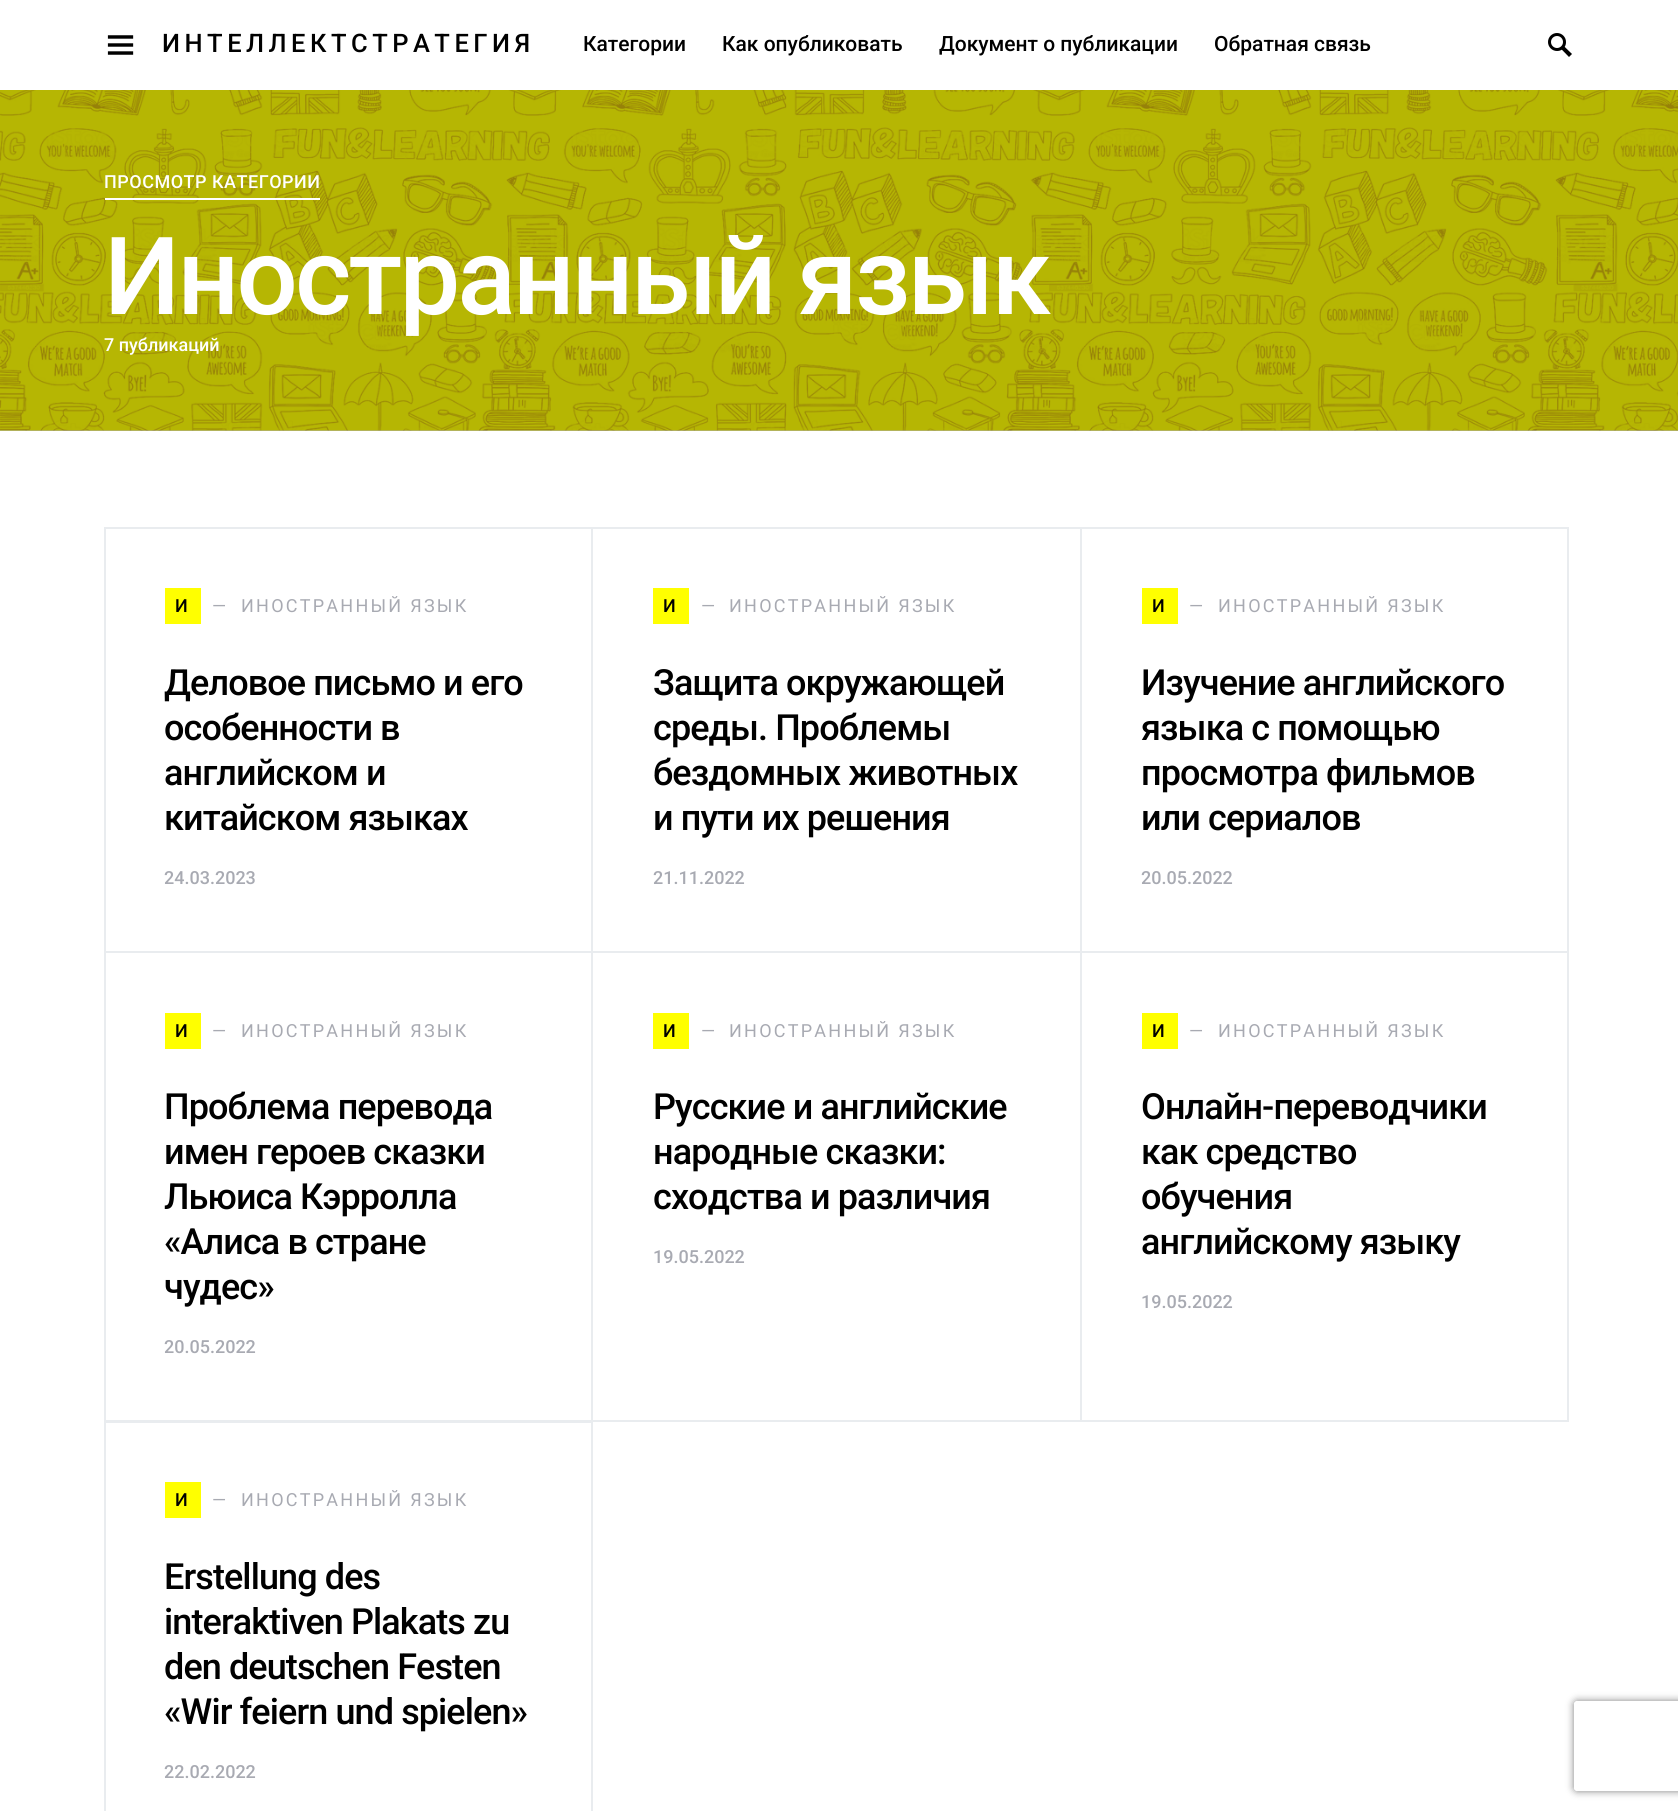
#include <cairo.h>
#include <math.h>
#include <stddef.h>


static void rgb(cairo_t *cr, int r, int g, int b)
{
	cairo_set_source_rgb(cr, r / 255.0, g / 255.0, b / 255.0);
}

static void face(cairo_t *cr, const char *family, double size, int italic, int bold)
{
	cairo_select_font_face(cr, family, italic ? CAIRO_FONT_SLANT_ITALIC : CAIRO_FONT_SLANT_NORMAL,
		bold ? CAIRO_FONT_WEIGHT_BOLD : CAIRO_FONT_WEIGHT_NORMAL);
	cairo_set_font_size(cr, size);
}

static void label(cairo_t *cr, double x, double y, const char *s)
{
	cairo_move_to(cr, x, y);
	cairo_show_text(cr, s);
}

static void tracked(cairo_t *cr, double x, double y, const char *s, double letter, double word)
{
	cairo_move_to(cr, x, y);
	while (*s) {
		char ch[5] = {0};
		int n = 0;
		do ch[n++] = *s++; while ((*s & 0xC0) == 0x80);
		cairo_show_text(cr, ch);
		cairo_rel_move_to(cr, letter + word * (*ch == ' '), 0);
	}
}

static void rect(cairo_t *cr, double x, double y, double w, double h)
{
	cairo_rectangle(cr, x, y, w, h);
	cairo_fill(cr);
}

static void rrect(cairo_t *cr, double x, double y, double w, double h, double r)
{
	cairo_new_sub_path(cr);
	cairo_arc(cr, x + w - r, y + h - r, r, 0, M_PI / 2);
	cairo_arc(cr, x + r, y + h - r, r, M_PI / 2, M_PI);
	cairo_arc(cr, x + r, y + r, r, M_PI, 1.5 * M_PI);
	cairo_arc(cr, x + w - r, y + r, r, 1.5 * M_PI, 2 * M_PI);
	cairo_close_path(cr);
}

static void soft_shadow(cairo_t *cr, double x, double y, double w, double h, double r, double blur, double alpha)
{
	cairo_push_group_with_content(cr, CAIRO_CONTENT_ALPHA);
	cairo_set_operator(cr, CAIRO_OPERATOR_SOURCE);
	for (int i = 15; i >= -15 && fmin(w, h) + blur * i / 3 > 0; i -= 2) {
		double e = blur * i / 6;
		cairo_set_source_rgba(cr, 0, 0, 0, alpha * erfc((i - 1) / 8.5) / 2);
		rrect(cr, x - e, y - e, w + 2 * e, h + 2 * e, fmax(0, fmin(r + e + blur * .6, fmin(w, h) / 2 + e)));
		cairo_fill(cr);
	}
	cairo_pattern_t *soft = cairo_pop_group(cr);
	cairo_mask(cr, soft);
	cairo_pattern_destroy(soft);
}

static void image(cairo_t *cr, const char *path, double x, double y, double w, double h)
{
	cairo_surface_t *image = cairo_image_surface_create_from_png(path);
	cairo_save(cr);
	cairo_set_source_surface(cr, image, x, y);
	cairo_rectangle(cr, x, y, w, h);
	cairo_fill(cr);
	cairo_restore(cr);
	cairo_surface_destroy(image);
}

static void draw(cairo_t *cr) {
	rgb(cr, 255, 255, 255);
	cairo_paint(cr);
	image(cr, "image0.png", 107, 35, 27, 20);
	face(cr, "Roboto Medium", 25.5, 0, 0);
	rgb(cr, 0, 0, 0);
	tracked(cr, 162, 52, "ИНТЕЛЛЕКТСТРАТЕГИЯ", 4.5, 0);
	face(cr, "Roboto Medium", 21, 0, 0);
	label(cr, 583, 51, "Категории");
	label(cr, 722, 51, "Как опубликовать");
	label(cr, 939, 51, "Документ о публикации");
	label(cr, 1214, 51, "Обратная связь");
	image(cr, "image1.png", 1548, 33, 24, 24);
	rgb(cr, 177, 177, 178);
	rect(cr, 0, 430, 1678, 1);
	image(cr, "image2.png", 0, 90, 1678, 341);
	face(cr, "Roboto Medium", 18, 0, 0);
	rgb(cr, 255, 255, 255);
	tracked(cr, 104, 188, "ПРОСМОТР КАТЕГОРИИ", 0.5, 0);
	rect(cr, 105, 198, 215, 2);
	face(cr, "Roboto Medium", 108, 0, 0);
	tracked(cr, 104, 314, "Иностранный язык", -2.75, 0);
	face(cr, "Roboto Medium", 18, 0, 0);
	label(cr, 104, 351, "7 публикаций");
	cairo_rectangle(cr, 105, 528, 487, 424);
	rgb(cr, 233, 236, 239);
	cairo_stroke(cr);
	rgb(cr, 255, 255, 0);
	rect(cr, 165, 588, 36, 36);
	rgb(cr, 0, 0, 0);
	tracked(cr, 175, 612, "И", 2.25, 0);
	face(cr, "Roboto", 18, 0, 0);
	rgb(cr, 168, 170, 178);
	tracked(cr, 212, 612, "—", 2.25, 0);
	tracked(cr, 241, 612, "ИНОСТРАННЫЙ ЯЗЫК", 2.25, 0);
	face(cr, "Roboto Medium", 36, 0, 0);
	rgb(cr, 0, 0, 0);
	tracked(cr, 164, 695, "Деловое письмо и его", -0.9, 0);
	tracked(cr, 164, 740, "особенности в", -0.9, 0);
	tracked(cr, 164, 785, "английском и", -0.9, 0);
	tracked(cr, 164, 830, "китайском языках", -0.9, 0);
	face(cr, "Roboto Medium", 18, 0, 0);
	rgb(cr, 168, 170, 178);
	label(cr, 164, 884, "24.03.2023");
	cairo_rectangle(cr, 592, 528, 489, 424);
	rgb(cr, 233, 236, 239);
	cairo_stroke(cr);
	rgb(cr, 255, 255, 0);
	rect(cr, 653, 588, 36, 36);
	rgb(cr, 0, 0, 0);
	tracked(cr, 663, 612, "И", 2.25, 0);
	face(cr, "Roboto", 18, 0, 0);
	rgb(cr, 168, 170, 178);
	tracked(cr, 701, 612, "—", 2.25, 0);
	tracked(cr, 729, 612, "ИНОСТРАННЫЙ ЯЗЫК", 2.25, 0);
	face(cr, "Roboto Medium", 36, 0, 0);
	rgb(cr, 0, 0, 0);
	tracked(cr, 653, 695, "Защита окружающей", -0.9, 0);
	tracked(cr, 653, 740, "среды. Проблемы", -0.9, 0);
	tracked(cr, 653, 785, "бездомных животных", -0.9, 0);
	tracked(cr, 653, 830, "и пути их решения", -0.9, 0);
	face(cr, "Roboto Medium", 18, 0, 0);
	rgb(cr, 168, 170, 178);
	label(cr, 653, 884, "21.11.2022");
	cairo_rectangle(cr, 1081, 528, 487, 424);
	rgb(cr, 233, 236, 239);
	cairo_stroke(cr);
	rgb(cr, 255, 255, 0);
	rect(cr, 1142, 588, 36, 36);
	rgb(cr, 0, 0, 0);
	tracked(cr, 1152, 612, "И", 2.25, 0);
	face(cr, "Roboto", 18, 0, 0);
	rgb(cr, 168, 170, 178);
	tracked(cr, 1189, 612, "—", 2.25, 0);
	tracked(cr, 1218, 612, "ИНОСТРАННЫЙ ЯЗЫК", 2.25, 0);
	face(cr, "Roboto Medium", 36, 0, 0);
	rgb(cr, 0, 0, 0);
	tracked(cr, 1141, 695, "Изучение английского", -0.9, 0);
	tracked(cr, 1141, 740, "языка с помощью", -0.9, 0);
	tracked(cr, 1141, 785, "просмотра фильмов", -0.9, 0);
	tracked(cr, 1141, 830, "или сериалов", -0.9, 0);
	face(cr, "Roboto Medium", 18, 0, 0);
	rgb(cr, 168, 170, 178);
	label(cr, 1141, 884, "20.05.2022");
	cairo_rectangle(cr, 105, 952, 487, 469);
	rgb(cr, 233, 236, 239);
	cairo_stroke(cr);
	rgb(cr, 255, 255, 0);
	rect(cr, 165, 1013, 36, 36);
	rgb(cr, 0, 0, 0);
	tracked(cr, 175, 1037, "И", 2.25, 0);
	face(cr, "Roboto", 18, 0, 0);
	rgb(cr, 168, 170, 178);
	tracked(cr, 212, 1037, "—", 2.25, 0);
	tracked(cr, 241, 1037, "ИНОСТРАННЫЙ ЯЗЫК", 2.25, 0);
	face(cr, "Roboto Medium", 36, 0, 0);
	rgb(cr, 0, 0, 0);
	tracked(cr, 164, 1119, "Проблема перевода", -0.9, 0);
	tracked(cr, 164, 1164, "имен героев сказки", -0.9, 0);
	tracked(cr, 164, 1209, "Льюиса Кэрролла", -0.9, 0);
	tracked(cr, 164, 1254, "«Алиса в стране", -0.9, 0);
	tracked(cr, 164, 1299, "чудес»", -0.9, 0);
	face(cr, "Roboto Medium", 18, 0, 0);
	rgb(cr, 168, 170, 178);
	label(cr, 164, 1353, "20.05.2022");
	cairo_rectangle(cr, 592, 952, 489, 469);
	rgb(cr, 233, 236, 239);
	cairo_stroke(cr);
	rgb(cr, 255, 255, 0);
	rect(cr, 653, 1013, 36, 36);
	rgb(cr, 0, 0, 0);
	tracked(cr, 663, 1037, "И", 2.25, 0);
	face(cr, "Roboto", 18, 0, 0);
	rgb(cr, 168, 170, 178);
	tracked(cr, 701, 1037, "—", 2.25, 0);
	tracked(cr, 729, 1037, "ИНОСТРАННЫЙ ЯЗЫК", 2.25, 0);
	face(cr, "Roboto Medium", 36, 0, 0);
	rgb(cr, 0, 0, 0);
	tracked(cr, 653, 1119, "Русские и английские", -0.9, 0);
	tracked(cr, 653, 1164, "народные сказки:", -0.9, 0);
	tracked(cr, 653, 1209, "сходства и различия", -0.9, 0);
	face(cr, "Roboto Medium", 18, 0, 0);
	rgb(cr, 168, 170, 178);
	label(cr, 653, 1263, "19.05.2022");
	cairo_rectangle(cr, 1081, 952, 487, 469);
	rgb(cr, 233, 236, 239);
	cairo_stroke(cr);
	rgb(cr, 255, 255, 0);
	rect(cr, 1142, 1013, 36, 36);
	rgb(cr, 0, 0, 0);
	tracked(cr, 1152, 1037, "И", 2.25, 0);
	face(cr, "Roboto", 18, 0, 0);
	rgb(cr, 168, 170, 178);
	tracked(cr, 1189, 1037, "—", 2.25, 0);
	tracked(cr, 1218, 1037, "ИНОСТРАННЫЙ ЯЗЫК", 2.25, 0);
	face(cr, "Roboto Medium", 36, 0, 0);
	rgb(cr, 0, 0, 0);
	tracked(cr, 1141, 1119, "Онлайн-переводчики", -0.9, 0);
	tracked(cr, 1141, 1164, "как средство", -0.9, 0);
	tracked(cr, 1141, 1209, "обучения", -0.9, 0);
	tracked(cr, 1141, 1254, "английскому языку", -0.9, 0);
	face(cr, "Roboto Medium", 18, 0, 0);
	rgb(cr, 168, 170, 178);
	label(cr, 1141, 1308, "19.05.2022");
	cairo_rectangle(cr, 105, 1422, 487, 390);
	rgb(cr, 233, 236, 239);
	cairo_stroke(cr);
	rgb(cr, 255, 255, 0);
	rect(cr, 165, 1482, 36, 36);
	rgb(cr, 0, 0, 0);
	tracked(cr, 175, 1506, "И", 2.25, 0);
	face(cr, "Roboto", 18, 0, 0);
	rgb(cr, 168, 170, 178);
	tracked(cr, 212, 1506, "—", 2.25, 0);
	tracked(cr, 241, 1506, "ИНОСТРАННЫЙ ЯЗЫК", 2.25, 0);
	face(cr, "Roboto Medium", 36, 0, 0);
	rgb(cr, 0, 0, 0);
	tracked(cr, 164, 1589, "Erstellung des", -0.9, 0);
	tracked(cr, 164, 1634, "interaktiven Plakats zu", -0.9, 0);
	tracked(cr, 164, 1679, "den deutschen Festen", -0.9, 0);
	tracked(cr, 164, 1724, "«Wir feiern und spielen»", -0.9, 0);
	face(cr, "Roboto Medium", 18, 0, 0);
	rgb(cr, 168, 170, 178);
	label(cr, 164, 1778, "22.02.2022");
	cairo_save(cr);
	cairo_set_fill_rule(cr, CAIRO_FILL_RULE_EVEN_ODD);
	cairo_new_path(cr);
	cairo_move_to(cr, 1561, 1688);
	cairo_line_to(cr, 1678, 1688);
	cairo_line_to(cr, 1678, 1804);
	cairo_line_to(cr, 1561, 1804);
	cairo_close_path(cr);
	cairo_move_to(cr, 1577, 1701);
	cairo_line_to(cr, 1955, 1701);
	cairo_curve_to(cr, 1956.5, 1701, 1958, 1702.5, 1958, 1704);
	cairo_line_to(cr, 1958, 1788);
	cairo_curve_to(cr, 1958, 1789.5, 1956.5, 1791, 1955, 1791);
	cairo_line_to(cr, 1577, 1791);
	cairo_curve_to(cr, 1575.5, 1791, 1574, 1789.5, 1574, 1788);
	cairo_line_to(cr, 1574, 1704);
	cairo_curve_to(cr, 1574, 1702.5, 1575.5, 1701, 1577, 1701);
	cairo_close_path(cr);
	cairo_clip(cr);
	rgb(cr, 128, 128, 128);
	soft_shadow(cr, 1574, 1701, 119, 90, 3, 4, 1);
	cairo_restore(cr);
}

int main(void) {
	cairo_surface_t *surface = cairo_image_surface_create(CAIRO_FORMAT_RGB24, 1678, 1811);
	cairo_t *cr = cairo_create(surface);
	cairo_font_options_t *options = cairo_font_options_create();
	cairo_font_options_set_hint_metrics(options, CAIRO_HINT_METRICS_OFF);
	cairo_font_options_set_hint_style(options, CAIRO_HINT_STYLE_NONE);
	cairo_set_font_options(cr, options);
	cairo_set_miter_limit(cr, 4);
	draw(cr);
	cairo_surface_write_to_png(surface, "render.png");
	cairo_font_options_destroy(options);
	cairo_destroy(cr);
	cairo_surface_destroy(surface);
	return 0;
}
